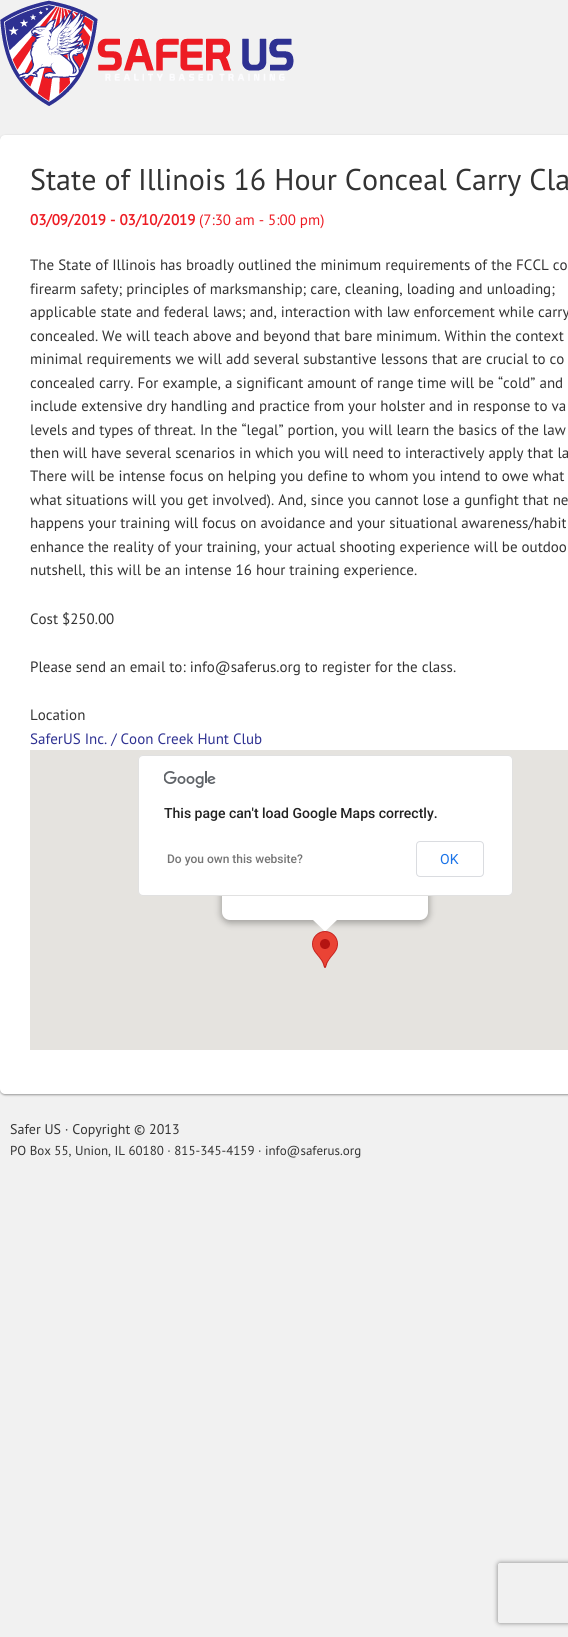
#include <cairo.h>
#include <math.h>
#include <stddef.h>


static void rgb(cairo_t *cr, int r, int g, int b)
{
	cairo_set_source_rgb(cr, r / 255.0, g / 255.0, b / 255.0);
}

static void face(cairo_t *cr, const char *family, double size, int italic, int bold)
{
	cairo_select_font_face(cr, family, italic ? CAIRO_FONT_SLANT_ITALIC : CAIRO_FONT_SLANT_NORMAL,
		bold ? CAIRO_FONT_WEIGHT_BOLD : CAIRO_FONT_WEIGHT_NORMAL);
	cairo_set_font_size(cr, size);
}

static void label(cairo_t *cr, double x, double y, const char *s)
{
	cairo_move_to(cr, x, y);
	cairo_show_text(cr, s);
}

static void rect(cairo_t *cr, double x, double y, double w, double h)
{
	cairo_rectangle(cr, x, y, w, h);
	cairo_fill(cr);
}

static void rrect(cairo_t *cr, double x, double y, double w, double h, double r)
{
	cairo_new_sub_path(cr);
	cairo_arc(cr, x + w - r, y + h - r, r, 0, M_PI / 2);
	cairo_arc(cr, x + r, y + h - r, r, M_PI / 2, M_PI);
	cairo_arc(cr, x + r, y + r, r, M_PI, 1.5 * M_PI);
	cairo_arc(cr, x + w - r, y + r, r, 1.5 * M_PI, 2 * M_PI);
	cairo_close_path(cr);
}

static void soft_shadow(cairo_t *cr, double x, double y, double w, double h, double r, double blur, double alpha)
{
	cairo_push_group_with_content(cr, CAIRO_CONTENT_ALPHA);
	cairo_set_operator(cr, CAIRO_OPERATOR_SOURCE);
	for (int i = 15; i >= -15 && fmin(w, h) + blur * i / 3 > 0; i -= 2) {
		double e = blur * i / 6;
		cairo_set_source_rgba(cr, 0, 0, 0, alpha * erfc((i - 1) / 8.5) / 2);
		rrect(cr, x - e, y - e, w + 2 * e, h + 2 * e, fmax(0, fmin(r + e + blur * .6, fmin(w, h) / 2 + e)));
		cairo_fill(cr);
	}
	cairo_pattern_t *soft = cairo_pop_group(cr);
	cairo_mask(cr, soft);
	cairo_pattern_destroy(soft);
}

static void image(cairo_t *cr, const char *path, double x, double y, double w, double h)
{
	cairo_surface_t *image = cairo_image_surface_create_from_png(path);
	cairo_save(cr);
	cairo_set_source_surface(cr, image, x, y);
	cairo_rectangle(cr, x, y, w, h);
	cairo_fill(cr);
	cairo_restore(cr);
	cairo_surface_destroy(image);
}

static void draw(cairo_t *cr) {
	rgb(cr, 241, 241, 241);
	cairo_paint(cr);
	image(cr, "image0.png", 0, 0, 294, 106);
	rgb(cr, 153, 153, 153);
	soft_shadow(cr, 0, 136, 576, 959, 5, 1, 1);
	rgb(cr, 255, 255, 255);
	rrect(cr, 0, 135, 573, 959, 5);
	cairo_fill(cr);
	face(cr, "PT Sans", 30, 0, 0);
	rgb(cr, 51, 51, 51);
	label(cr, 30, 190, "State of Illinois 16 Hour Conceal Carry Cla");
	face(cr, "PT Sans", 15, 0, 1);
	rgb(cr, 237, 28, 36);
	label(cr, 30, 225, "03/09/2019 - 03/10/2019");
	face(cr, "PT Sans", 15, 0, 0);
	label(cr, 199, 225, "(7:30 am - 5:00 pm)");
	rgb(cr, 51, 51, 51);
	label(cr, 30, 270, "The State of Illinois has broadly outlined the minimum requirements of the FCCL co");
	label(cr, 30, 294, "firearm safety; principles of marksmanship; care, cleaning, loading and unloading;");
	label(cr, 30, 317, "applicable state and federal laws; and, interaction with law enforcement while carry");
	label(cr, 30, 341, "concealed. We will teach above and beyond that bare minimum. Within the context");
	label(cr, 30, 364, "minimal requirements we will add several substantive lessons that are crucial to co");
	label(cr, 30, 388, "concealed carry. For example, a significant amount of range time will be “cold” and");
	label(cr, 30, 411, "include extensive dry handling and practice from your holster and in response to va");
	label(cr, 30, 435, "levels and types of threat. In the “legal” portion, you will learn the basics of the law");
	label(cr, 30, 458, "then will have several scenarios in which you will need to interactively apply that la");
	label(cr, 30, 481, "There will be intense focus on helping you define to whom you intend to owe what");
	label(cr, 30, 505, "what situations will you get involved). And, since you cannot lose a gunfight that ne");
	label(cr, 30, 528, "happens your training will focus on avoidance and your situational awareness/habit");
	label(cr, 30, 552, "enhance the reality of your training, your actual shooting experience will be outdoo");
	label(cr, 30, 575, "nutshell, this will be an intense 16 hour training experience.");
	label(cr, 30, 624, "Cost $250.00");
	label(cr, 30, 672, "Please send an email to: info@saferus.org to register for the class.");
	label(cr, 30, 720, "Location");
	rgb(cr, 46, 49, 146);
	label(cr, 30, 744, "SaferUS Inc. / Coon Creek Hunt Club");
	rgb(cr, 229, 227, 223);
	rect(cr, 30, 750, 538, 300);
	image(cr, "image1.png", 312, 931, 26, 37);
	rgb(cr, 0, 0, 0);
	soft_shadow(cr, 221, 811, 208, 112, 9, 3.5, 0.3);
	rgb(cr, 255, 255, 255);
	rrect(cr, 222, 810, 206, 110, 8);
	cairo_fill(cr);
	cairo_new_path(cr);
	cairo_move_to(cr, 325.5, 931);
	cairo_line_to(cr, 337.5, 919.5);
	cairo_line_to(cr, 313, 919.5);
	cairo_line_to(cr, 313, 920);
	cairo_line_to(cr, 324.5, 931);
	cairo_close_path(cr);
	cairo_fill(cr);
	rrect(cr, 138, 755, 375, 141, 5);
	cairo_fill(cr);
	rrect(cr, 138.5, 755.5, 374, 140, 4.5);
	cairo_set_source_rgba(cr, 0, 0, 0, 0.12);
	cairo_set_line_width(cr, 1);
	cairo_stroke(cr);
	image(cr, "image2.png", 164, 771, 52, 17);
	face(cr, "Roboto Medium", 14, 0, 0);
	rgb(cr, 33, 33, 33);
	label(cr, 164, 818, "This page can't load Google Maps correctly.");
	face(cr, "Roboto Medium", 12, 0, 0);
	rgb(cr, 117, 117, 117);
	label(cr, 167, 863, "Do you own this website?");
	rrect(cr, 416.5, 841.5, 67, 35, 3.5);
	rgb(cr, 218, 220, 224);
	cairo_stroke(cr);
	face(cr, "Roboto", 14, 0, 0);
	rgb(cr, 26, 115, 232);
	label(cr, 440, 864, "OK");
	face(cr, "PT Sans", 14, 0, 0);
	rgb(cr, 51, 51, 51);
	label(cr, 10, 1134, "Safer US · Copyright © 2013");
	face(cr, "PT Sans", 13, 0, 0);
	label(cr, 10, 1155, "PO Box 55, Union, IL 60180 · 815-345-4159 · info@saferus.org");
	cairo_save(cr);
	cairo_set_fill_rule(cr, CAIRO_FILL_RULE_EVEN_ODD);
	cairo_new_path(cr);
	cairo_move_to(cr, 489, 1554);
	cairo_line_to(cr, 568, 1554);
	cairo_line_to(cr, 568, 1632);
	cairo_line_to(cr, 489, 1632);
	cairo_close_path(cr);
	cairo_move_to(cr, 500, 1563);
	cairo_line_to(cr, 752, 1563);
	cairo_curve_to(cr, 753, 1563, 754, 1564, 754, 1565);
	cairo_line_to(cr, 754, 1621);
	cairo_curve_to(cr, 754, 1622, 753, 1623, 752, 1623);
	cairo_line_to(cr, 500, 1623);
	cairo_curve_to(cr, 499, 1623, 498, 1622, 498, 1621);
	cairo_line_to(cr, 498, 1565);
	cairo_curve_to(cr, 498, 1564, 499, 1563, 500, 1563);
	cairo_close_path(cr);
	cairo_clip(cr);
	rgb(cr, 128, 128, 128);
	soft_shadow(cr, 498, 1563, 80, 60, 2, 2.5, 1);
	cairo_restore(cr);
}

int main(void) {
	cairo_surface_t *surface = cairo_image_surface_create(CAIRO_FORMAT_RGB24, 568, 1637);
	cairo_t *cr = cairo_create(surface);
	cairo_font_options_t *options = cairo_font_options_create();
	cairo_font_options_set_hint_metrics(options, CAIRO_HINT_METRICS_OFF);
	cairo_font_options_set_hint_style(options, CAIRO_HINT_STYLE_NONE);
	cairo_set_font_options(cr, options);
	cairo_set_miter_limit(cr, 4);
	draw(cr);
	cairo_surface_write_to_png(surface, "render.png");
	cairo_font_options_destroy(options);
	cairo_destroy(cr);
	cairo_surface_destroy(surface);
	return 0;
}
